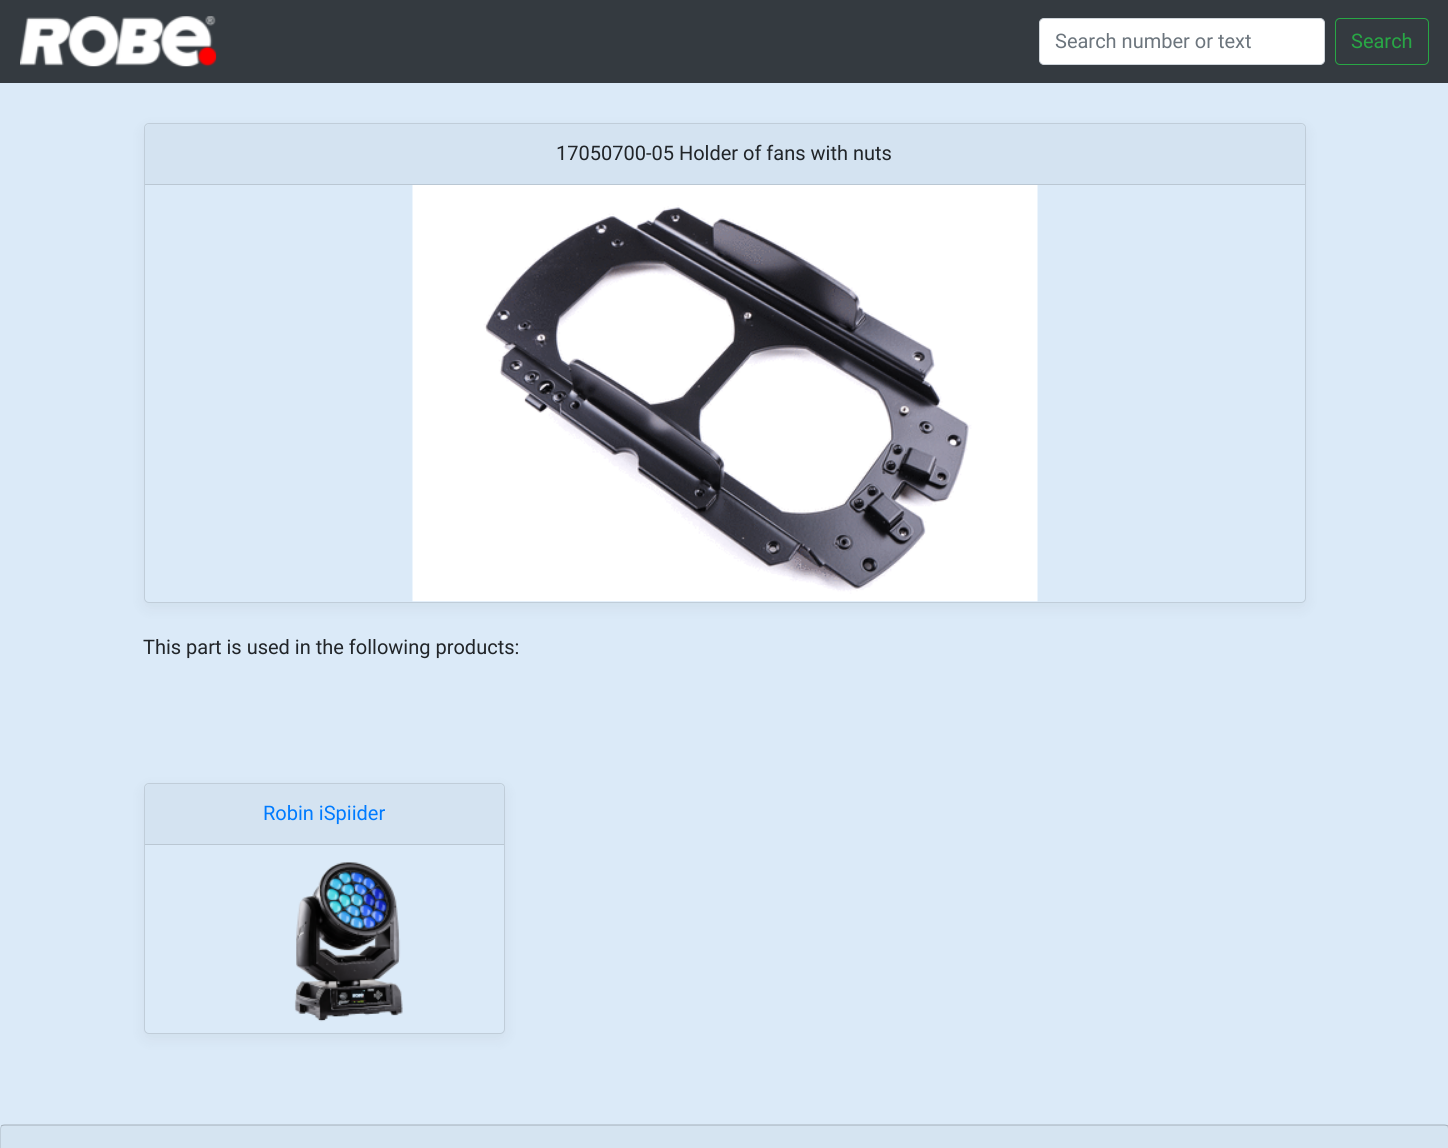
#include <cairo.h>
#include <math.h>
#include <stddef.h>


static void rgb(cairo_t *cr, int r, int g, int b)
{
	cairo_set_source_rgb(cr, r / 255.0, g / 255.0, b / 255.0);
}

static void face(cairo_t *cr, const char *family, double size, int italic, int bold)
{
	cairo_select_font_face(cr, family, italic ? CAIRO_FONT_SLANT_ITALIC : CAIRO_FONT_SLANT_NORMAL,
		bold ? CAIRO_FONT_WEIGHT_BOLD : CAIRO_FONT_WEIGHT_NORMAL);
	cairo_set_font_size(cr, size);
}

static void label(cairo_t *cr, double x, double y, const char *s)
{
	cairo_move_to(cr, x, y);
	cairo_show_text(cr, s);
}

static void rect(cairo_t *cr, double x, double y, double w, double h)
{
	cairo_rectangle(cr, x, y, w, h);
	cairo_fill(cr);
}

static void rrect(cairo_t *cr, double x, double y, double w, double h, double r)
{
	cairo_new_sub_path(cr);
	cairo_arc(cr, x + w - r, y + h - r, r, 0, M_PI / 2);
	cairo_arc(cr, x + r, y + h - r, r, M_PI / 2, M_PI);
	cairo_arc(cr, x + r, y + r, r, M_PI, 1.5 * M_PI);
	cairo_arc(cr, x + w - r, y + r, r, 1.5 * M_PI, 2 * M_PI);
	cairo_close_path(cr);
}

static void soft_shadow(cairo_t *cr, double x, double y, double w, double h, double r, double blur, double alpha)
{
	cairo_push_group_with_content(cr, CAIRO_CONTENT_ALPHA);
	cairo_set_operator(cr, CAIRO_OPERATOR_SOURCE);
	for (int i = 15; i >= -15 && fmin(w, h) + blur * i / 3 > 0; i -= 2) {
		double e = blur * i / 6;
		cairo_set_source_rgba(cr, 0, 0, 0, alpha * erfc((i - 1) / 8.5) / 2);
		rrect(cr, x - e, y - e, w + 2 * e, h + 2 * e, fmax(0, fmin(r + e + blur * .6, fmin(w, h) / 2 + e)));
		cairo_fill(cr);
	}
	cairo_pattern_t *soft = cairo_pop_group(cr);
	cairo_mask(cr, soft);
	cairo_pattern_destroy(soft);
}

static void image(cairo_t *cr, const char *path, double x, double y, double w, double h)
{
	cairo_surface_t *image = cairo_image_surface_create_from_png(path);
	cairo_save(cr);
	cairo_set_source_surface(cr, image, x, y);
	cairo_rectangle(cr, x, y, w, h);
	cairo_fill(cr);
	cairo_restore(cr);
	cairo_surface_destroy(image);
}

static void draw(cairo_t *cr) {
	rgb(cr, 219, 234, 248);
	cairo_paint(cr);
	rgb(cr, 52, 58, 64);
	rect(cr, 0, 0, 1448, 83);
	image(cr, "image0.png", 20, 16, 197, 51);
	rgb(cr, 255, 255, 255);
	rrect(cr, 1039.5, 18.5, 285, 46, 4.5);
	cairo_fill_preserve(cr);
	rgb(cr, 206, 212, 218);
	cairo_set_line_width(cr, 1);
	cairo_stroke(cr);
	face(cr, "Roboto", 20, 0, 0);
	rgb(cr, 108, 117, 125);
	label(cr, 1055, 48, "Search number or text");
	rrect(cr, 1335.5, 18.5, 93, 46, 4.5);
	rgb(cr, 40, 167, 69);
	cairo_stroke(cr);
	label(cr, 1351, 48, "Search");
	rgb(cr, 0, 0, 0);
	soft_shadow(cr, 144, 128, 1162, 480, 5, 7.5, 0.05);
	rgb(cr, 219, 234, 248);
	rrect(cr, 144.5, 123.5, 1161, 479, 4.5);
	cairo_fill_preserve(cr);
	rgb(cr, 192, 205, 217);
	cairo_stroke(cr);
	rgb(cr, 212, 227, 241);
	cairo_new_path(cr);
	cairo_move_to(cr, 150, 124);
	cairo_line_to(cr, 1300, 124);
	cairo_curve_to(cr, 1303, 124, 1305, 126, 1305, 129);
	cairo_line_to(cr, 1305, 185);
	cairo_line_to(cr, 145, 185);
	cairo_line_to(cr, 145, 129);
	cairo_curve_to(cr, 145, 126, 147, 124, 150, 124);
	cairo_close_path(cr);
	cairo_fill(cr);
	rgb(cr, 186, 199, 211);
	rect(cr, 145, 184, 1160, 1);
	rgb(cr, 33, 37, 41);
	label(cr, 556, 160, "17050700-05 Holder of fans with nuts");
	image(cr, "image1.png", 412, 185, 626, 417);
	label(cr, 143, 654, "This part is used in the following products:");
	rgb(cr, 0, 0, 0);
	soft_shadow(cr, 144, 788, 361, 251, 5, 7.5, 0.05);
	rgb(cr, 219, 234, 248);
	rrect(cr, 144.5, 783.5, 360, 250, 4.5);
	cairo_fill_preserve(cr);
	rgb(cr, 192, 205, 217);
	cairo_stroke(cr);
	rgb(cr, 212, 227, 241);
	cairo_new_path(cr);
	cairo_move_to(cr, 150, 784);
	cairo_line_to(cr, 499, 784);
	cairo_curve_to(cr, 502, 784, 504, 786, 504, 789);
	cairo_line_to(cr, 504, 845);
	cairo_line_to(cr, 145, 845);
	cairo_line_to(cr, 145, 789);
	cairo_curve_to(cr, 145, 786, 147, 784, 150, 784);
	cairo_close_path(cr);
	cairo_fill(cr);
	rgb(cr, 186, 199, 211);
	rect(cr, 145, 844, 359, 1);
	rgb(cr, 0, 123, 255);
	label(cr, 263, 820, "Robin iSpiider");
	image(cr, "image2.png", 294, 862, 109, 160);
	rrect(cr, 0.5, 1124.5, 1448, 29, 4.5);
	rgb(cr, 192, 205, 217);
	cairo_stroke(cr);
	cairo_set_source_rgba(cr, 0, 0, 0, 0.03);
	rect(cr, 1, 1125, 1447, 23);
	cairo_set_source_rgba(cr, 0, 0, 0, 0.12);
	rect(cr, 1, 1125, 1447, 1);
}

int main(void) {
	cairo_surface_t *surface = cairo_image_surface_create(CAIRO_FORMAT_RGB24, 1448, 1148);
	cairo_t *cr = cairo_create(surface);
	cairo_font_options_t *options = cairo_font_options_create();
	cairo_font_options_set_hint_metrics(options, CAIRO_HINT_METRICS_OFF);
	cairo_font_options_set_hint_style(options, CAIRO_HINT_STYLE_NONE);
	cairo_set_font_options(cr, options);
	cairo_set_miter_limit(cr, 4);
	draw(cr);
	cairo_surface_write_to_png(surface, "render.png");
	cairo_font_options_destroy(options);
	cairo_destroy(cr);
	cairo_surface_destroy(surface);
	return 0;
}
